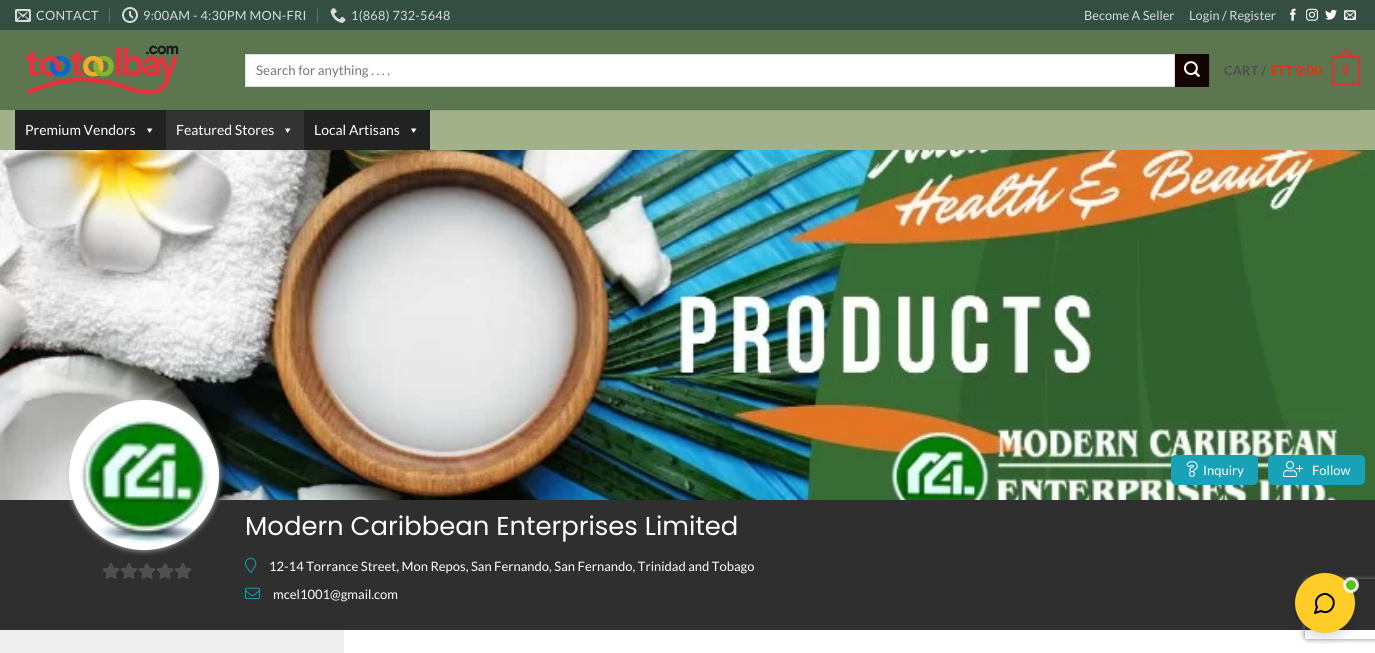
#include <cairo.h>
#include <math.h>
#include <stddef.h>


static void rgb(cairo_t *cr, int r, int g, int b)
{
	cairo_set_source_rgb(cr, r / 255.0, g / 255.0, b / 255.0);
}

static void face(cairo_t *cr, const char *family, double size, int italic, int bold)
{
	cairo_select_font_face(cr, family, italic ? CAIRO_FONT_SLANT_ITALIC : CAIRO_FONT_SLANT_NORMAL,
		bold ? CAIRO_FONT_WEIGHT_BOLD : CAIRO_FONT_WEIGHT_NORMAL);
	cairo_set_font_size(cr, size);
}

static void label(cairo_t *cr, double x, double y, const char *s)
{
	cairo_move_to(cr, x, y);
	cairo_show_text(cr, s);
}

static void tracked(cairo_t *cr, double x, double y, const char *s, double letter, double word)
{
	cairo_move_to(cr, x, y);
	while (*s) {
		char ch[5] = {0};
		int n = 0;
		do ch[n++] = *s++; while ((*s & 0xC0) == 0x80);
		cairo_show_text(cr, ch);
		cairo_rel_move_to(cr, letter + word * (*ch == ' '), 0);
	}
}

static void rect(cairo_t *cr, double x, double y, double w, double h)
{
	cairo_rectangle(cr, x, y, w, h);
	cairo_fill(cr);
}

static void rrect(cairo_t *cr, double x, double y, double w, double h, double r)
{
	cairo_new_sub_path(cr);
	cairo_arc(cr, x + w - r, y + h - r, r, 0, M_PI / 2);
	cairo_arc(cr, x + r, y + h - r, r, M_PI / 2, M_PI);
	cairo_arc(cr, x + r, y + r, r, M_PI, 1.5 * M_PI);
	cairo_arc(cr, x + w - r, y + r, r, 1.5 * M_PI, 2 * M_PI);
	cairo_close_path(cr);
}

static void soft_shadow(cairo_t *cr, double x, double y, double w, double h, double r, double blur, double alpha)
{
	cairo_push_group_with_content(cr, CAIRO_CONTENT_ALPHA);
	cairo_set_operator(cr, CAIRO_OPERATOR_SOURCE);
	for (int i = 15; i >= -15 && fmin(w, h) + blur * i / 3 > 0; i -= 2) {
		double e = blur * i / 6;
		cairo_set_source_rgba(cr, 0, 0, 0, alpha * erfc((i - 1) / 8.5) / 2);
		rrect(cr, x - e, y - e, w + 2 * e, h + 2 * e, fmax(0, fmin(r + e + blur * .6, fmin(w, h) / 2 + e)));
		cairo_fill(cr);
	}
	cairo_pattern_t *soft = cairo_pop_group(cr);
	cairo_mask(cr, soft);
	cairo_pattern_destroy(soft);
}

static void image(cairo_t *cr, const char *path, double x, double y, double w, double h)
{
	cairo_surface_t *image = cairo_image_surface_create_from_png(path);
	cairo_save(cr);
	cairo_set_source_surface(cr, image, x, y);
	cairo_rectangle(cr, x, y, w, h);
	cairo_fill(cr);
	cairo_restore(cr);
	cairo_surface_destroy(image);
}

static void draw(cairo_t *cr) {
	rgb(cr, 255, 255, 255);
	cairo_paint(cr);
	rgb(cr, 52, 78, 65);
	rect(cr, 0, 0, 1375, 30);
	image(cr, "image0.png", 15, 9, 16, 13);
	face(cr, "Lato", 12.75, 0, 0);
	rgb(cr, 214, 220, 217);
	tracked(cr, 36, 20, "CONTACT", 0.25, 0);
	rgb(cr, 93, 113, 103);
	rect(cr, 109, 8, 1, 15);
	image(cr, "image1.png", 122, 7, 16, 16);
	rgb(cr, 214, 220, 217);
	tracked(cr, 143, 20, "9:00AM - 4:30PM MON-FRI", 0.25, 0);
	rgb(cr, 93, 113, 103);
	rect(cr, 317, 8, 1, 15);
	image(cr, "image2.png", 330, 8, 16, 15);
	rgb(cr, 214, 220, 217);
	tracked(cr, 351, 20, "1(868) 732-5648", 0.25, 0);
	label(cr, 1084, 20, "Become A Seller");
	label(cr, 1189, 20, "Login / Register");
	image(cr, "image3.png", 1290, 8, 6, 13);
	image(cr, "image4.png", 1306, 8, 12, 13);
	image(cr, "image5.png", 1325, 9, 12, 11);
	image(cr, "image6.png", 1344, 10, 12, 10);
	rgb(cr, 92, 118, 80);
	rect(cr, 0, 30, 1375, 80);
	image(cr, "image7.png", 25, 45, 154, 50);
	rgb(cr, 255, 255, 255);
	cairo_rectangle(cr, 245.5, 54.5, 929, 32);
	cairo_fill_preserve(cr);
	rgb(cr, 221, 221, 221);
	cairo_set_line_width(cr, 1);
	cairo_stroke(cr);
	face(cr, "Lato", 13.25, 0, 0);
	rgb(cr, 117, 117, 117);
	label(cr, 256, 75, "Search for anything . . . .");
	rgb(cr, 20, 4, 0);
	rect(cr, 1175, 54, 34, 33);
	image(cr, "image8.png", 1184, 61, 16, 16);
	rgb(cr, 83, 106, 72);
	rect(cr, 1209, 55, 1, 30);
	face(cr, "Lato", 12.75, 0, 1);
	rgb(cr, 77, 81, 75);
	tracked(cr, 1224, 75, "CART /", 0.25, 0);
	rgb(cr, 245, 43, 12);
	tracked(cr, 1270, 75, "$TT 0.00", 0.25, 0);
	cairo_rectangle(cr, 1333, 57, 26, 27);
	rgb(cr, 221, 51, 51);
	cairo_set_line_width(cr, 2);
	cairo_stroke(cr);
	cairo_set_fill_rule(cr, CAIRO_FILL_RULE_EVEN_ODD);
	cairo_new_path(cr);
	cairo_move_to(cr, 1346, 50);
	cairo_curve_to(cr, 1350.5, 50, 1353, 54, 1353, 58);
	cairo_line_to(cr, 1339, 58);
	cairo_curve_to(cr, 1339, 54, 1341.5, 50, 1346, 50);
	cairo_close_path(cr);
	cairo_move_to(cr, 1346, 52);
	cairo_curve_to(cr, 1349.5, 52, 1351, 55, 1351, 58);
	cairo_line_to(cr, 1341, 58);
	cairo_curve_to(cr, 1341, 55, 1342.5, 52, 1346, 52);
	cairo_close_path(cr);
	cairo_fill(cr);
	face(cr, "Liberation Sans", 12.75, 0, 1);
	tracked(cr, 1342, 74, "0", 0.25, 0);
	rgb(cr, 163, 177, 138);
	rect(cr, 0, 110, 1375, 40);
	rgb(cr, 147, 159, 124);
	rect(cr, 430, 110, 930, 1);
	rgb(cr, 34, 34, 34);
	rect(cr, 15, 111, 415, 39);
	rgb(cr, 31, 31, 31);
	rect(cr, 15, 110, 415, 1);
	face(cr, "Lato", 14, 0, 0);
	rgb(cr, 255, 255, 255);
	label(cr, 25, 135, "Premium Vendors");
	cairo_set_fill_rule(cr, CAIRO_FILL_RULE_WINDING);
	cairo_new_path(cr);
	cairo_move_to(cr, 152.5, 128.5);
	cairo_line_to(cr, 149.5, 133);
	cairo_line_to(cr, 147, 128.5);
	cairo_close_path(cr);
	cairo_fill(cr);
	rgb(cr, 51, 51, 51);
	rect(cr, 166, 111, 138, 39);
	rgb(cr, 46, 46, 46);
	rect(cr, 166, 110, 138, 1);
	rgb(cr, 255, 255, 255);
	label(cr, 176, 135, "Featured Stores");
	cairo_new_path(cr);
	cairo_move_to(cr, 290.5, 128.5);
	cairo_line_to(cr, 287.5, 133);
	cairo_line_to(cr, 285, 128.5);
	cairo_close_path(cr);
	cairo_fill(cr);
	label(cr, 314, 135, "Local Artisans");
	cairo_new_path(cr);
	cairo_move_to(cr, 416.5, 128.5);
	cairo_line_to(cr, 413.5, 133);
	cairo_line_to(cr, 411, 128.5);
	cairo_close_path(cr);
	cairo_fill(cr);
	image(cr, "image9.png", 0, 150, 1375, 350);
	rgb(cr, 47, 47, 47);
	rect(cr, 0, 500, 1375, 130);
	rgb(cr, 23, 162, 184);
	rrect(cr, 1171, 455, 87, 30, 5);
	cairo_fill(cr);
	image(cr, "image10.png", 1186, 461, 12, 16);
	face(cr, "Lato", 13, 0, 0);
	rgb(cr, 255, 255, 255);
	label(cr, 1203, 475, "Inquiry");
	rgb(cr, 23, 162, 184);
	rrect(cr, 1268, 455, 97, 30, 5);
	cairo_fill(cr);
	image(cr, "image11.png", 1283, 461, 20, 16);
	rgb(cr, 255, 255, 255);
	label(cr, 1312, 475, "Follow");
	rgb(cr, 204, 204, 204);
	soft_shadow(cr, 69, 400, 150, 150, 75, 3, 1);
	rgb(cr, 255, 255, 255);
	cairo_arc(cr, 144, 475, 75, 0, 2 * M_PI);
	cairo_fill(cr);
	image(cr, "image12.png", 80, 418, 130, 126);
	face(cr, "Poppins", 25.9, 0, 0);
	label(cr, 245, 535, "Modern Caribbean Enterprises Limited");
	image(cr, "image13.png", 245, 557, 12, 16);
	face(cr, "Lato", 13, 0, 0);
	label(cr, 269, 571, "12-14 Torrance Street, Mon Repos, San Fernando, San Fernando, Trinidad and Tobago");
	image(cr, "image14.png", 245, 587, 15, 12);
	label(cr, 273, 599, "mcel1001@gmail.com");
	image(cr, "image15.png", 102, 563, 90, 16);
	rgb(cr, 239, 239, 239);
	rect(cr, 0, 630, 344, 23);
	rgb(cr, 0, 0, 0);
	soft_shadow(cr, 1295, 577, 60, 60, 30, 6, 0.15);
	cairo_save(cr);
	cairo_set_fill_rule(cr, CAIRO_FILL_RULE_EVEN_ODD);
	cairo_new_path(cr);
	cairo_move_to(cr, 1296, 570);
	cairo_line_to(cr, 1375, 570);
	cairo_line_to(cr, 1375, 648);
	cairo_line_to(cr, 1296, 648);
	cairo_close_path(cr);
	cairo_move_to(cr, 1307, 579);
	cairo_line_to(cr, 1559, 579);
	cairo_curve_to(cr, 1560, 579, 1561, 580, 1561, 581);
	cairo_line_to(cr, 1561, 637);
	cairo_curve_to(cr, 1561, 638, 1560, 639, 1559, 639);
	cairo_line_to(cr, 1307, 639);
	cairo_curve_to(cr, 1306, 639, 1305, 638, 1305, 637);
	cairo_line_to(cr, 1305, 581);
	cairo_curve_to(cr, 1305, 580, 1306, 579, 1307, 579);
	cairo_close_path(cr);
	cairo_clip(cr);
	rgb(cr, 128, 128, 128);
	soft_shadow(cr, 1305, 579, 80, 60, 2, 2.5, 1);
	cairo_restore(cr);
	rgb(cr, 255, 204, 40);
	cairo_arc(cr, 1325, 603, 30, 0, 2 * M_PI);
	cairo_fill(cr);
	cairo_arc(cr, 1351, 585, 7.5, 0, 2 * M_PI);
	cairo_set_source_rgba(cr, 1, 1, 1, 0.8);
	cairo_set_line_width(cr, 1);
	cairo_stroke(cr);
	rgb(cr, 82, 196, 26);
	cairo_arc(cr, 1351, 585, 6, 0, 2 * M_PI);
	cairo_fill_preserve(cr);
	rgb(cr, 255, 255, 255);
	cairo_set_line_width(cr, 2);
	cairo_stroke(cr);
	cairo_new_path(cr);
	cairo_move_to(cr, 1321, 611);
	cairo_curve_to(cr, 1331.5, 616.5, 1339.5, 600, 1328.5, 595);
	cairo_curve_to(cr, 1326.5, 593.5, 1323.5, 593.5, 1321, 595);
	cairo_curve_to(cr, 1316.5, 597, 1314.5, 602.5, 1317, 607);
	cairo_line_to(cr, 1315, 613);
	cairo_close_path(cr);
	rgb(cr, 0, 0, 0);
	cairo_set_line_cap(cr, CAIRO_LINE_CAP_ROUND);
	cairo_set_line_join(cr, CAIRO_LINE_JOIN_ROUND);
	cairo_stroke(cr);
}

int main(void) {
	cairo_surface_t *surface = cairo_image_surface_create(CAIRO_FORMAT_RGB24, 1375, 653);
	cairo_t *cr = cairo_create(surface);
	cairo_font_options_t *options = cairo_font_options_create();
	cairo_font_options_set_hint_metrics(options, CAIRO_HINT_METRICS_OFF);
	cairo_font_options_set_hint_style(options, CAIRO_HINT_STYLE_NONE);
	cairo_set_font_options(cr, options);
	cairo_set_miter_limit(cr, 4);
	draw(cr);
	cairo_surface_write_to_png(surface, "render.png");
	cairo_font_options_destroy(options);
	cairo_destroy(cr);
	cairo_surface_destroy(surface);
	return 0;
}
